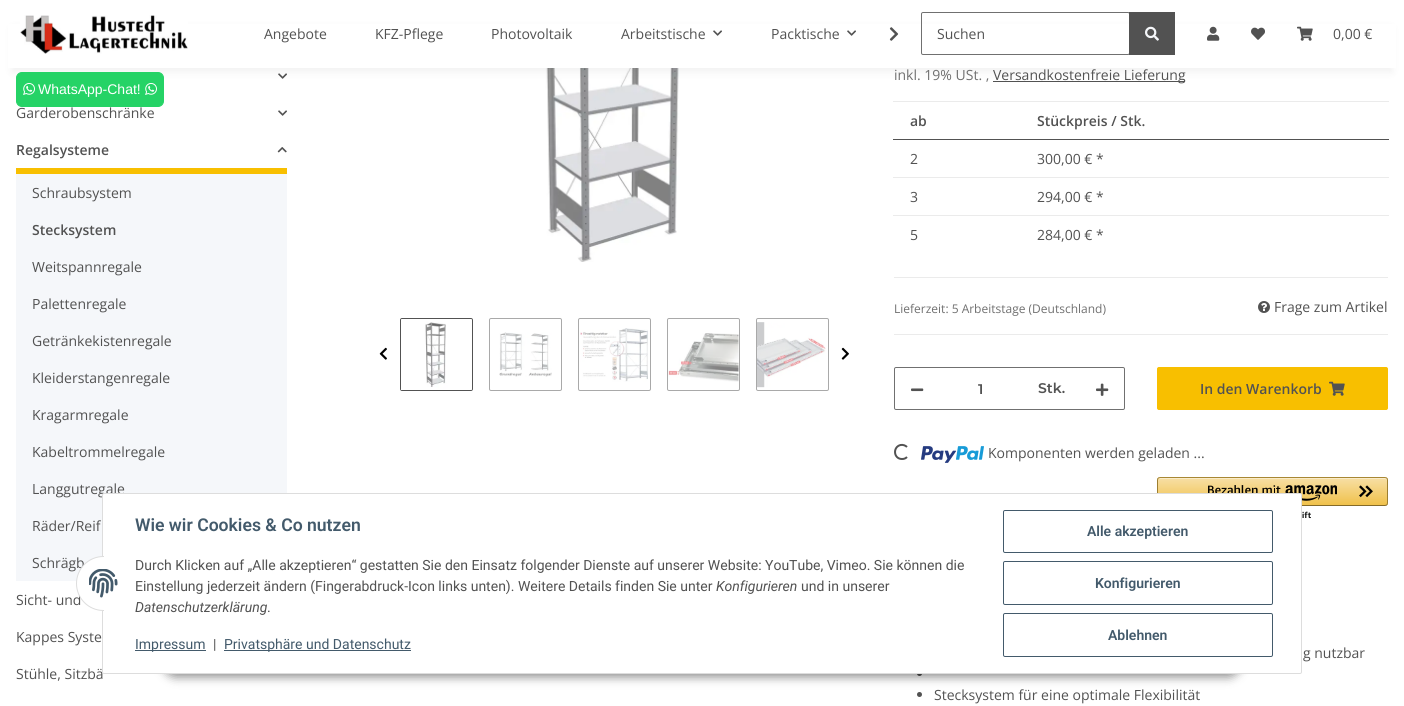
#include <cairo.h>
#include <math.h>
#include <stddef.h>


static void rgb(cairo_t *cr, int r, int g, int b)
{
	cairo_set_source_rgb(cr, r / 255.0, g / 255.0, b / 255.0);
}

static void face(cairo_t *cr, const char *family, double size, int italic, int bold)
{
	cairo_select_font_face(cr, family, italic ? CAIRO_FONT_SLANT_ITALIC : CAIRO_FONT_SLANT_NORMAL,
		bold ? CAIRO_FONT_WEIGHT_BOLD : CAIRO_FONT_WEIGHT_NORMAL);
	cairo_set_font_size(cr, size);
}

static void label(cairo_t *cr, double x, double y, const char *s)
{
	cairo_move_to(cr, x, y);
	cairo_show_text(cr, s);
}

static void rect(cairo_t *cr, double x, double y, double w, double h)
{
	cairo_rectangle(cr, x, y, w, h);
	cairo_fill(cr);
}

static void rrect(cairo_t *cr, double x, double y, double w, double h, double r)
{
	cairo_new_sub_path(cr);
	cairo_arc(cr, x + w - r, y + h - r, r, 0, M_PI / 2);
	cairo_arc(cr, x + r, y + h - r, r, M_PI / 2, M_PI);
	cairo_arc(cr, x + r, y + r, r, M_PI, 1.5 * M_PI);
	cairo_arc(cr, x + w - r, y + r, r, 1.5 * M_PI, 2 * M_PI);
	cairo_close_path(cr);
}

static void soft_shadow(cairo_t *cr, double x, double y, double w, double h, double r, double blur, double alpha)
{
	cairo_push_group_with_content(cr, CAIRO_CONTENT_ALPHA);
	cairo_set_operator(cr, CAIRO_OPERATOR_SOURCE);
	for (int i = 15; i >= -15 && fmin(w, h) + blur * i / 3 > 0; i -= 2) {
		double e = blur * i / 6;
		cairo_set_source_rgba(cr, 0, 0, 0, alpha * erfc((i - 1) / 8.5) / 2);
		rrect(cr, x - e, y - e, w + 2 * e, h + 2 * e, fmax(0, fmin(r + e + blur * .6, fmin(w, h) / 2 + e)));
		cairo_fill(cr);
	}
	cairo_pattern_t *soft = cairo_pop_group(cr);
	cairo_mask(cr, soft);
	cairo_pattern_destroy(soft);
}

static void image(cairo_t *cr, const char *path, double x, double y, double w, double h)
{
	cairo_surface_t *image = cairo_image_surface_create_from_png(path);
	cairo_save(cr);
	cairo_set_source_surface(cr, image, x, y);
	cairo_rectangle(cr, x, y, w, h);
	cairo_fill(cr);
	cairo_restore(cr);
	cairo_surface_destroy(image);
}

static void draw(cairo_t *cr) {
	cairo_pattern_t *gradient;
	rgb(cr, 255, 255, 255);
	cairo_paint(cr);
	image(cr, "image0.png", 278, 73, 9, 6);
	image(cr, "image9.png", 545, 68, 135, 194);
	rgb(cr, 82, 82, 82);
	rect(cr, 993, 81, 192, 1);
	rgb(cr, 0, 0, 0);
	soft_shadow(cr, 12, 28, 1380, 44, 0, 4.5, 0.06);
	rgb(cr, 255, 255, 255);
	rect(cr, 8, 24, 1388, 44);
	face(cr, "Open Sans", 14, 0, 0);
	rgb(cr, 82, 82, 82);
	label(cr, 264, 39, "Angebote");
	label(cr, 375, 39, "KFZ-Pflege");
	label(cr, 491, 39, "Photovoltaik");
	label(cr, 621, 39, "Arbeitstische");
	image(cr, "image0.png", 713, 30, 9, 6);
	label(cr, 771, 39, "Packtische");
	image(cr, "image0.png", 847, 30, 9, 6);
	image(cr, "image1.png", 889, 27, 10, 14);
	rrect(cr, 921.5, 12.5, 208, 42, 1.5);
	rgb(cr, 112, 112, 112);
	cairo_set_line_width(cr, 1);
	cairo_stroke(cr);
	rgb(cr, 82, 82, 82);
	label(cr, 937, 39, "Suchen");
	rect(cr, 1129, 12, 46, 43);
	image(cr, "image2.png", 1145, 26, 14, 15);
	image(cr, "image3.png", 1207, 26, 13, 15);
	image(cr, "image4.png", 1251, 27, 14, 13);
	image(cr, "image5.png", 1297, 26, 16, 15);
	label(cr, 1333, 39, "0,00 €");
	image(cr, "image6.png", 20, 15, 168, 39);
	rgb(cr, 37, 211, 102);
	rrect(cr, 16.5, 72.5, 147, 34, 5.5);
	cairo_fill_preserve(cr);
	cairo_stroke(cr);
	image(cr, "image7.png", 23, 83, 12, 12);
	face(cr, "Liberation Sans", 14, 0, 0);
	rgb(cr, 255, 255, 255);
	label(cr, 38, 94, "WhatsApp-Chat!");
	image(cr, "image7.png", 145, 83, 12, 12);
	face(cr, "Open Sans", 14, 0, 0);
	rgb(cr, 82, 82, 82);
	label(cr, 16, 118, "Garderobenschränke");
	image(cr, "image0.png", 278, 110, 9, 6);
	rgb(cr, 248, 191, 0);
	rect(cr, 16, 168, 271, 6);
	face(cr, "Open Sans SemiBold", 14, 0, 0);
	rgb(cr, 82, 82, 82);
	label(cr, 16, 155, "Regalsysteme");
	image(cr, "image8.png", 277, 147, 10, 6);
	rgb(cr, 245, 247, 250);
	rect(cr, 16, 174, 271, 407);
	face(cr, "Open Sans", 14, 0, 0);
	rgb(cr, 82, 82, 82);
	label(cr, 32, 198, "Schraubsystem");
	face(cr, "Open Sans SemiBold", 14, 0, 0);
	label(cr, 32, 235, "Stecksystem");
	face(cr, "Open Sans", 14, 0, 0);
	label(cr, 32, 272, "Weitspannregale");
	label(cr, 32, 309, "Palettenregale");
	label(cr, 32, 346, "Getränkekistenregale");
	label(cr, 32, 383, "Kleiderstangenregale");
	label(cr, 32, 420, "Kragarmregale");
	label(cr, 32, 457, "Kabeltrommelregale");
	label(cr, 32, 494, "Langgutregale");
	label(cr, 32, 531, "Räder/Reif");
	label(cr, 32, 568, "Schrägb");
	label(cr, 16, 605, "Sicht- und");
	label(cr, 16, 642, "Kappes Syste");
	label(cr, 16, 679, "Stühle, Sitzbä");
	image(cr, "image10.png", 379, 347, 8, 13);
	rrect(cr, 400.5, 318.5, 72, 72, 1.5);
	cairo_stroke(cr);
	image(cr, "image11.png", 401, 319, 71, 71);
	rrect(cr, 489.5, 318.5, 72, 72, 1.5);
	rgb(cr, 169, 169, 169);
	cairo_stroke(cr);
	image(cr, "image12.png", 499, 332, 53, 45);
	rrect(cr, 578.5, 318.5, 72, 72, 1.5);
	cairo_stroke(cr);
	image(cr, "image13.png", 580, 328, 68, 54);
	rrect(cr, 667.5, 318.5, 72, 72, 1.5);
	cairo_stroke(cr);
	image(cr, "image14.png", 668, 333, 71, 49);
	rrect(cr, 756.5, 318.5, 72, 72, 1.5);
	cairo_stroke(cr);
	image(cr, "image15.png", 757, 322, 69, 66);
	image(cr, "image16.png", 841, 347, 8, 13);
	rgb(cr, 112, 112, 112);
	label(cr, 894, 80, "inkl. 19% USt. ,");
	rgb(cr, 82, 82, 82);
	label(cr, 993, 80, "Versandkostenfreie Lieferung");
	face(cr, "Open Sans SemiBold", 14, 0, 0);
	label(cr, 910, 126, "ab");
	rgb(cr, 235, 235, 235);
	rect(cr, 893, 101, 496, 1);
	rgb(cr, 82, 82, 82);
	rect(cr, 893, 139, 496, 1);
	label(cr, 1037, 126, "Stückpreis / Stk.");
	face(cr, "Open Sans", 14, 0, 0);
	label(cr, 910, 164, "2");
	label(cr, 1037, 164, "300,00 €");
	label(cr, 1096, 164, "*");
	label(cr, 910, 202, "3");
	rgb(cr, 235, 235, 235);
	rect(cr, 893, 177, 496, 1);
	rgb(cr, 82, 82, 82);
	label(cr, 1037, 202, "294,00 €");
	label(cr, 1096, 202, "*");
	label(cr, 910, 240, "5");
	rgb(cr, 235, 235, 235);
	rect(cr, 893, 215, 496, 1);
	rgb(cr, 82, 82, 82);
	label(cr, 1037, 240, "284,00 €");
	label(cr, 1096, 240, "*");
	rgb(cr, 235, 235, 235);
	rect(cr, 894, 277, 494, 1);
	rect(cr, 894, 334, 494, 1);
	face(cr, "Open Sans", 12, 0, 0);
	rgb(cr, 112, 112, 112);
	label(cr, 894, 313, "Lieferzeit: 5 Arbeitstage (Deutschland)");
	image(cr, "image17.png", 1258, 301, 12, 12);
	face(cr, "Open Sans", 14, 0, 0);
	rgb(cr, 82, 82, 82);
	label(cr, 1274, 312, "Frage zum Artikel");
	rrect(cr, 894.5, 367.5, 230, 42, 1.5);
	rgb(cr, 112, 112, 112);
	cairo_stroke(cr);
	image(cr, "image18.png", 911, 388, 13, 4);
	face(cr, "Montserrat SemiBold", 14, 0, 0);
	rgb(cr, 82, 82, 82);
	label(cr, 978, 394, "1");
	label(cr, 1038, 393, "Stk.");
	image(cr, "image19.png", 1096, 383, 13, 13);
	rgb(cr, 248, 191, 0);
	rrect(cr, 1157.5, 367.5, 230, 42, 1.5);
	cairo_fill_preserve(cr);
	cairo_stroke(cr);
	face(cr, "Open Sans SemiBold", 14, 0, 0);
	rgb(cr, 82, 82, 82);
	label(cr, 1200, 394, "In den Warenkorb");
	image(cr, "image20.png", 1329, 381, 16, 15);
	cairo_new_path(cr);
	cairo_move_to(cr, 907, 457);
	cairo_curve_to(cr, 905.5, 458.5, 904, 459, 902, 459);
	cairo_curve_to(cr, 893.5, 459, 892.5, 447, 900.5, 445);
	cairo_curve_to(cr, 903, 444.5, 905.5, 445.5, 907, 447);
	cairo_set_line_width(cr, 2);
	cairo_stroke(cr);
	image(cr, "image21.png", 921, 446, 63, 17);
	face(cr, "Open Sans", 14, 0, 0);
	label(cr, 988, 458, "Komponenten werden geladen ...");
	cairo_save(cr);
	rrect(cr, 1157, 477, 231, 29, 3);
	cairo_clip(cr);
	gradient = cairo_pattern_create_linear(1273, 478, 1273, 505);
	cairo_pattern_add_color_stop_rgba(gradient, 0, 0.969, 0.875, 0.647, 1);
	cairo_pattern_add_color_stop_rgba(gradient, 1, 0.941, 0.757, 0.294, 1);
	cairo_set_source(cr, gradient);
	cairo_pattern_destroy(gradient);
	rect(cr, 1157, 478, 231, 27);
	cairo_restore(cr);
	cairo_set_source_rgba(cr, 1, 1, 1, 0.4);
	cairo_new_path(cr);
	cairo_move_to(cr, 1160, 479);
	cairo_line_to(cr, 1385, 479);
	cairo_curve_to(cr, 1386, 479, 1387, 480, 1387, 481);
	cairo_curve_to(cr, 1387, 480, 1387, 478, 1385, 478);
	cairo_line_to(cr, 1160, 478);
	cairo_line_to(cr, 1159, 479);
	cairo_line_to(cr, 1158, 481);
	cairo_curve_to(cr, 1158, 480, 1159, 479, 1160, 479);
	cairo_close_path(cr);
	cairo_fill(cr);
	cairo_new_path(cr);
	cairo_move_to(cr, 1158, 478);
	cairo_line_to(cr, 1160, 477.5);
	cairo_line_to(cr, 1385, 477.5);
	cairo_line_to(cr, 1387, 478);
	rgb(cr, 168, 135, 52);
	cairo_set_line_width(cr, 1);
	cairo_stroke(cr);
	cairo_new_path(cr);
	cairo_move_to(cr, 1387, 478);
	cairo_curve_to(cr, 1387, 478.5, 1387.5, 479.5, 1387.5, 480);
	cairo_line_to(cr, 1387.5, 503);
	cairo_curve_to(cr, 1387.5, 503.5, 1387, 504.5, 1387, 505);
	rgb(cr, 156, 126, 49);
	cairo_stroke(cr);
	cairo_new_path(cr);
	cairo_move_to(cr, 1387, 505);
	cairo_line_to(cr, 1385, 505.5);
	cairo_line_to(cr, 1160, 505.5);
	cairo_line_to(cr, 1158, 505);
	rgb(cr, 132, 106, 41);
	cairo_stroke(cr);
	cairo_new_path(cr);
	cairo_move_to(cr, 1158, 505);
	cairo_curve_to(cr, 1158, 504.5, 1157.5, 503.5, 1157.5, 503);
	cairo_line_to(cr, 1157.5, 480);
	cairo_curve_to(cr, 1157.5, 479.5, 1158, 478.5, 1158, 478);
	rgb(cr, 156, 126, 49);
	cairo_stroke(cr);
	image(cr, "image22.png", 1208, 485, 129, 16);
	image(cr, "image23.png", 1359, 485, 14, 13);
	image(cr, "image24.png", 1302, 511, 9, 8);
	rgb(cr, 82, 82, 82);
	label(cr, 1303, 658, "g nutzbar");
	cairo_new_path(cr);
	cairo_arc(cr, 919.5, 673.5, 2.5, 0, 2 * M_PI);
	cairo_fill(cr);
	cairo_arc(cr, 919.5, 694.5, 2.5, 0, 2 * M_PI);
	cairo_fill(cr);
	label(cr, 934, 700, "Stecksystem für eine optimale Flexibilität");
	rgb(cr, 0, 0, 0);
	soft_shadow(cr, 163, 645, 1078, 32, 16, 5, 0.45);
	rgb(cr, 255, 255, 255);
	rrect(cr, 102.5, 493.5, 1199, 180, 1.5);
	cairo_fill_preserve(cr);
	rgb(cr, 221, 221, 221);
	cairo_stroke(cr);
	rgb(cr, 255, 255, 255);
	cairo_arc(cr, 103.5, 583.5, 27, 0, 2 * M_PI);
	cairo_fill_preserve(cr);
	rgb(cr, 221, 221, 221);
	cairo_stroke(cr);
	rgb(cr, 255, 255, 255);
	rect(cr, 104, 556, 27, 55);
	image(cr, "image25.png", 89, 569, 29, 29);
	face(cr, "Roboto SemiBold", 17.6, 0, 0);
	rgb(cr, 67, 90, 107);
	label(cr, 135, 531, "Wie wir Cookies & Co nutzen");
	face(cr, "Roboto", 14, 0, 0);
	rgb(cr, 82, 82, 82);
	label(cr, 135, 570, "Durch Klicken auf „Alle akzeptieren“ gestatten Sie den Einsatz folgender Dienste auf unserer Website: YouTube, Vimeo. Sie können die");
	label(cr, 135, 591, "Einstellung jederzeit ändern (Fingerabdruck-Icon links unten). Weitere Details finden Sie unter");
	face(cr, "Roboto", 14, 1, 0);
	label(cr, 716, 591, "Konfigurieren");
	face(cr, "Roboto", 14, 0, 0);
	label(cr, 801, 591, "und in unserer");
	face(cr, "Roboto", 14, 1, 0);
	label(cr, 135, 612, "Datenschutzerklärung");
	face(cr, "Roboto", 14, 0, 0);
	label(cr, 267, 612, ".");
	rgb(cr, 67, 90, 107);
	rect(cr, 135, 650, 71, 1);
	label(cr, 135, 649, "Impressum");
	rgb(cr, 82, 82, 82);
	label(cr, 213, 649, "|");
	rgb(cr, 67, 90, 107);
	rect(cr, 224, 650, 187, 1);
	label(cr, 224, 649, "Privatsphäre und Datenschutz");
	rrect(cr, 1003.5, 510.5, 269, 42, 1.5);
	cairo_stroke(cr);
	face(cr, "Roboto SemiBold", 14, 0, 0);
	label(cr, 1087, 536, "Alle akzeptieren");
	rrect(cr, 1003.5, 561.5, 269, 43, 1.5);
	cairo_stroke(cr);
	label(cr, 1095, 588, "Konfigurieren");
	rrect(cr, 1003.5, 613.5, 269, 43, 1.5);
	cairo_stroke(cr);
	label(cr, 1108, 640, "Ablehnen");
}

int main(void) {
	cairo_surface_t *surface = cairo_image_surface_create(CAIRO_FORMAT_RGB24, 1404, 706);
	cairo_t *cr = cairo_create(surface);
	cairo_font_options_t *options = cairo_font_options_create();
	cairo_font_options_set_hint_metrics(options, CAIRO_HINT_METRICS_OFF);
	cairo_font_options_set_hint_style(options, CAIRO_HINT_STYLE_NONE);
	cairo_set_font_options(cr, options);
	cairo_set_miter_limit(cr, 4);
	draw(cr);
	cairo_surface_write_to_png(surface, "render.png");
	cairo_font_options_destroy(options);
	cairo_destroy(cr);
	cairo_surface_destroy(surface);
	return 0;
}
